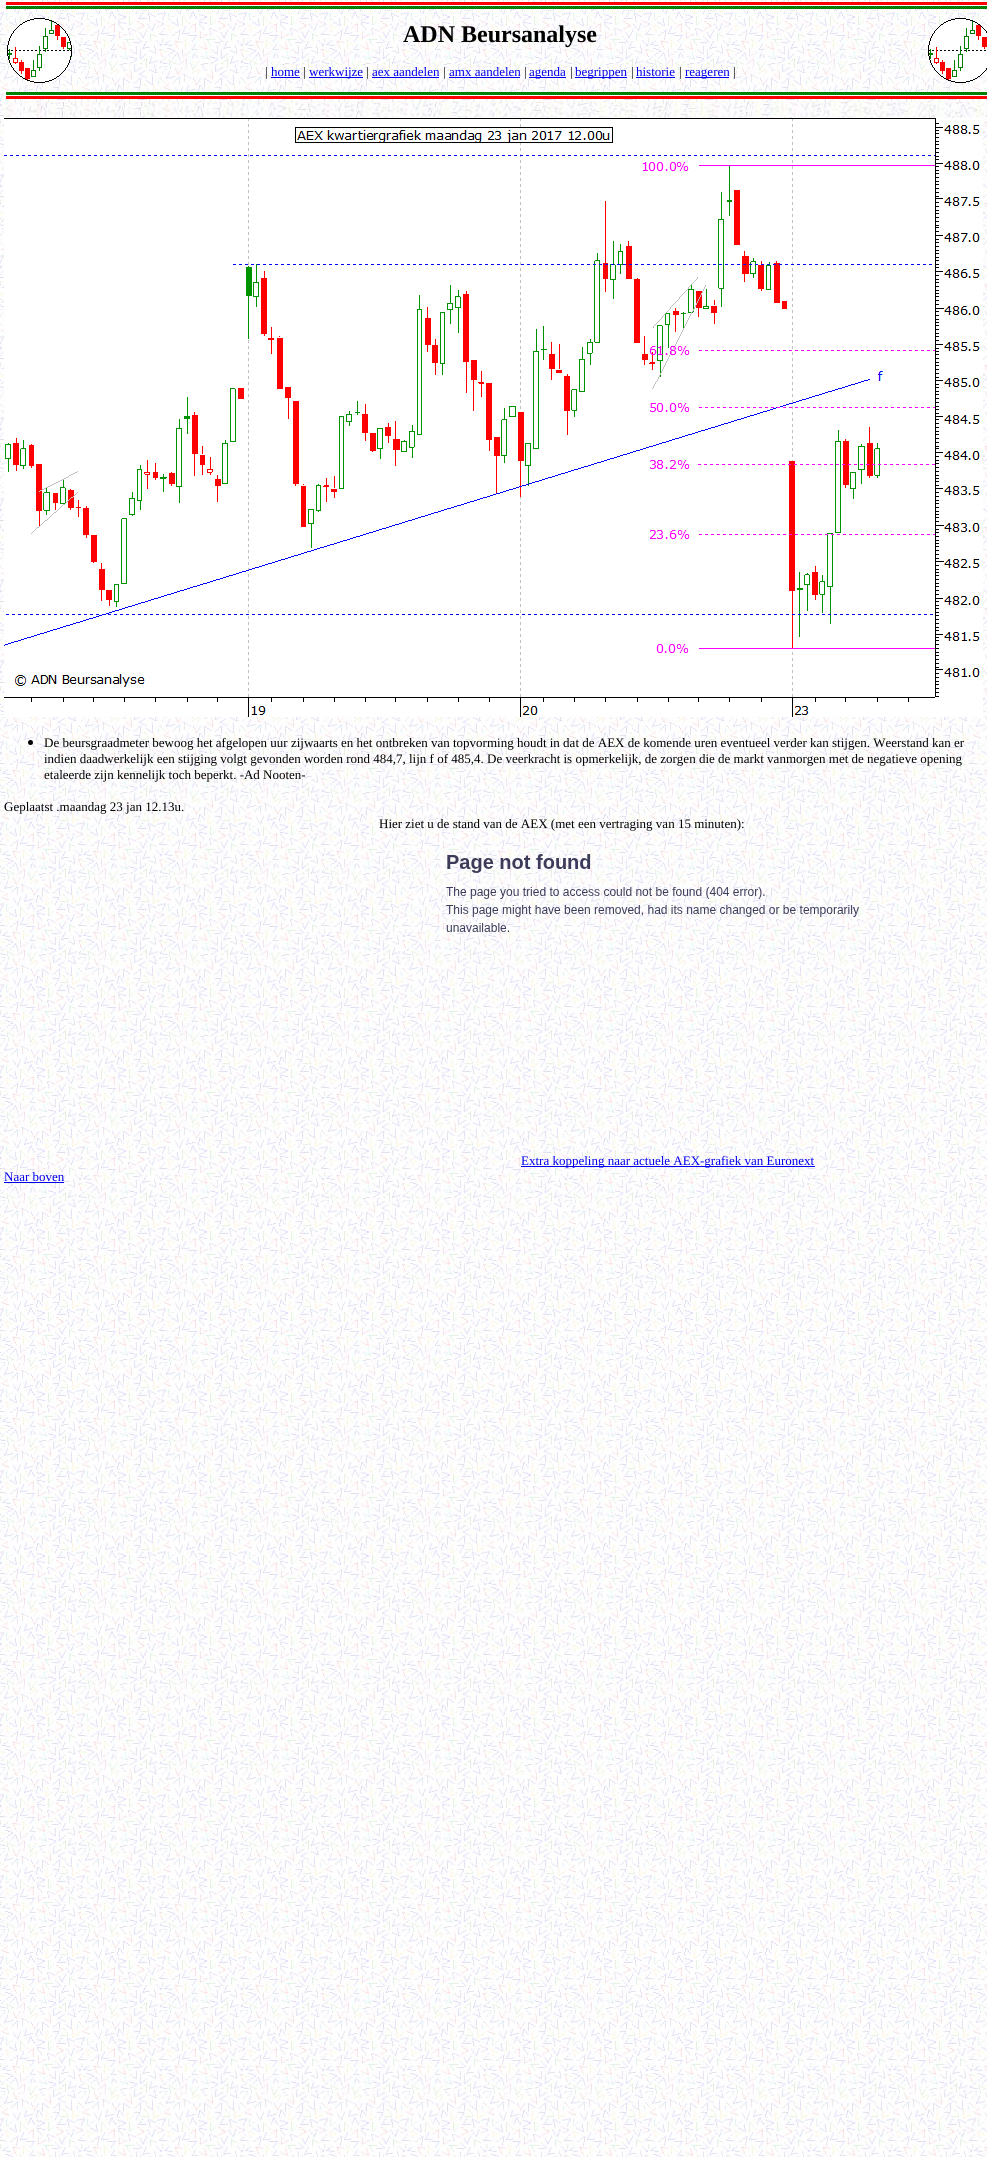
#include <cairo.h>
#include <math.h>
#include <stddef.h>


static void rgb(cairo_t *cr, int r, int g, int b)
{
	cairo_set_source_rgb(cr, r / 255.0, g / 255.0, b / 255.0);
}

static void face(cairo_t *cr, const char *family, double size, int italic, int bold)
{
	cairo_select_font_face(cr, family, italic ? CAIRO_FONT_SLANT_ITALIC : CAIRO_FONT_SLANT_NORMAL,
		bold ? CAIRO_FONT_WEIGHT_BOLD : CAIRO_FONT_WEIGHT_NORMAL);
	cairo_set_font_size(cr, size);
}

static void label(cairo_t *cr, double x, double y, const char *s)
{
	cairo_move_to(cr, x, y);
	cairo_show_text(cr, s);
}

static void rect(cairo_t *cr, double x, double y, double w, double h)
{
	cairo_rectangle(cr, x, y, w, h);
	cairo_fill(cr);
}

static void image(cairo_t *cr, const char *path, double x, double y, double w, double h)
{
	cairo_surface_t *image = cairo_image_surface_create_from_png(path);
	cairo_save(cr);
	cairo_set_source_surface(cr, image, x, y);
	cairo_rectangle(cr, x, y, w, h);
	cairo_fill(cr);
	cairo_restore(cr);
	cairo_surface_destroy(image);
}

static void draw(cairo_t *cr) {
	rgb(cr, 255, 255, 255);
	cairo_paint(cr);
	image(cr, "image0.png", 0, 0, 987, 2157);
	image(cr, "image1.png", 6, 2, 981, 7);
	image(cr, "image2.png", 7, 18, 65, 65);
	face(cr, "Liberation Serif", 24, 0, 1);
	rgb(cr, 0, 0, 0);
	label(cr, 403, 42, "ADN Beursanalyse");
	face(cr, "Liberation Serif", 13, 0, 0);
	label(cr, 265, 76, "|");
	rgb(cr, 0, 0, 238);
	label(cr, 271, 76, "home");
	rect(cr, 271, 77, 29, 1);
	rgb(cr, 0, 0, 0);
	label(cr, 303, 76, "|");
	rgb(cr, 0, 0, 238);
	rect(cr, 309, 77, 54, 1);
	label(cr, 309, 76, "werkwijze");
	rgb(cr, 0, 0, 0);
	label(cr, 366, 76, "|");
	rgb(cr, 0, 0, 238);
	label(cr, 372, 76, "aex aandelen");
	rect(cr, 372, 77, 67, 1);
	rgb(cr, 0, 0, 0);
	label(cr, 443, 76, "|");
	rgb(cr, 0, 0, 238);
	label(cr, 449, 76, "amx aandelen");
	rect(cr, 449, 77, 71, 1);
	rgb(cr, 0, 0, 0);
	label(cr, 524, 76, "|");
	rgb(cr, 0, 0, 238);
	rect(cr, 529, 77, 37, 1);
	label(cr, 529, 76, "agenda");
	rgb(cr, 0, 0, 0);
	label(cr, 570, 76, "|");
	rgb(cr, 0, 0, 238);
	rect(cr, 575, 77, 52, 1);
	label(cr, 575, 76, "begrippen");
	rgb(cr, 0, 0, 0);
	label(cr, 631, 76, "|");
	rgb(cr, 0, 0, 238);
	label(cr, 636, 76, "historie");
	rect(cr, 636, 77, 39, 1);
	rgb(cr, 0, 0, 0);
	label(cr, 679, 76, "|");
	rgb(cr, 0, 0, 238);
	rect(cr, 685, 77, 44, 1);
	label(cr, 685, 76, "reageren");
	rgb(cr, 0, 0, 0);
	label(cr, 733, 76, "|");
	image(cr, "image3.png", 928, 18, 59, 65);
	image(cr, "image4.png", 6, 92, 981, 7);
	image(cr, "image5.png", 4, 102, 983, 15);
	image(cr, "image6.png", 4, 118, 979, 599);
	cairo_arc(cr, 30.5, 742.5, 2.5, 0, 2 * M_PI);
	cairo_fill(cr);
	label(cr, 44, 747, "De beursgraadmeter bewoog het afgelopen uur zijwaarts en het ontbreken van topvorming houdt in dat de AEX de komende uren eventueel verder kan stijgen. Weerstand kan er");
	label(cr, 44, 763, "indien daadwerkelijk een stijging volgt gevonden worden rond 484,7, lijn f of 485,4. De veerkracht is opmerkelijk, de zorgen die de markt vanmorgen met de negatieve opening");
	label(cr, 44, 779, "etaleerde zijn kennelijk toch beperkt. -Ad Nooten-");
	label(cr, 4, 811, "Geplaatst .maandag 23 jan 12.13u.");
	label(cr, 379, 828, "Hier ziet u de stand van de AEX (met een vertraging van 15 minuten):");
	image(cr, "image7.png", 446, 854, 413, 78);
	rgb(cr, 0, 0, 238);
	rect(cr, 521, 1166, 294, 1);
	label(cr, 521, 1165, "Extra koppeling naar actuele AEX-grafiek van Euronext");
	label(cr, 4, 1181, "Naar boven");
	rect(cr, 4, 1182, 60, 1);
}

int main(void) {
	cairo_surface_t *surface = cairo_image_surface_create(CAIRO_FORMAT_RGB24, 987, 2157);
	cairo_t *cr = cairo_create(surface);
	cairo_font_options_t *options = cairo_font_options_create();
	cairo_font_options_set_hint_metrics(options, CAIRO_HINT_METRICS_OFF);
	cairo_font_options_set_hint_style(options, CAIRO_HINT_STYLE_NONE);
	cairo_set_font_options(cr, options);
	cairo_set_miter_limit(cr, 4);
	draw(cr);
	cairo_surface_write_to_png(surface, "render.png");
	cairo_font_options_destroy(options);
	cairo_destroy(cr);
	cairo_surface_destroy(surface);
	return 0;
}
